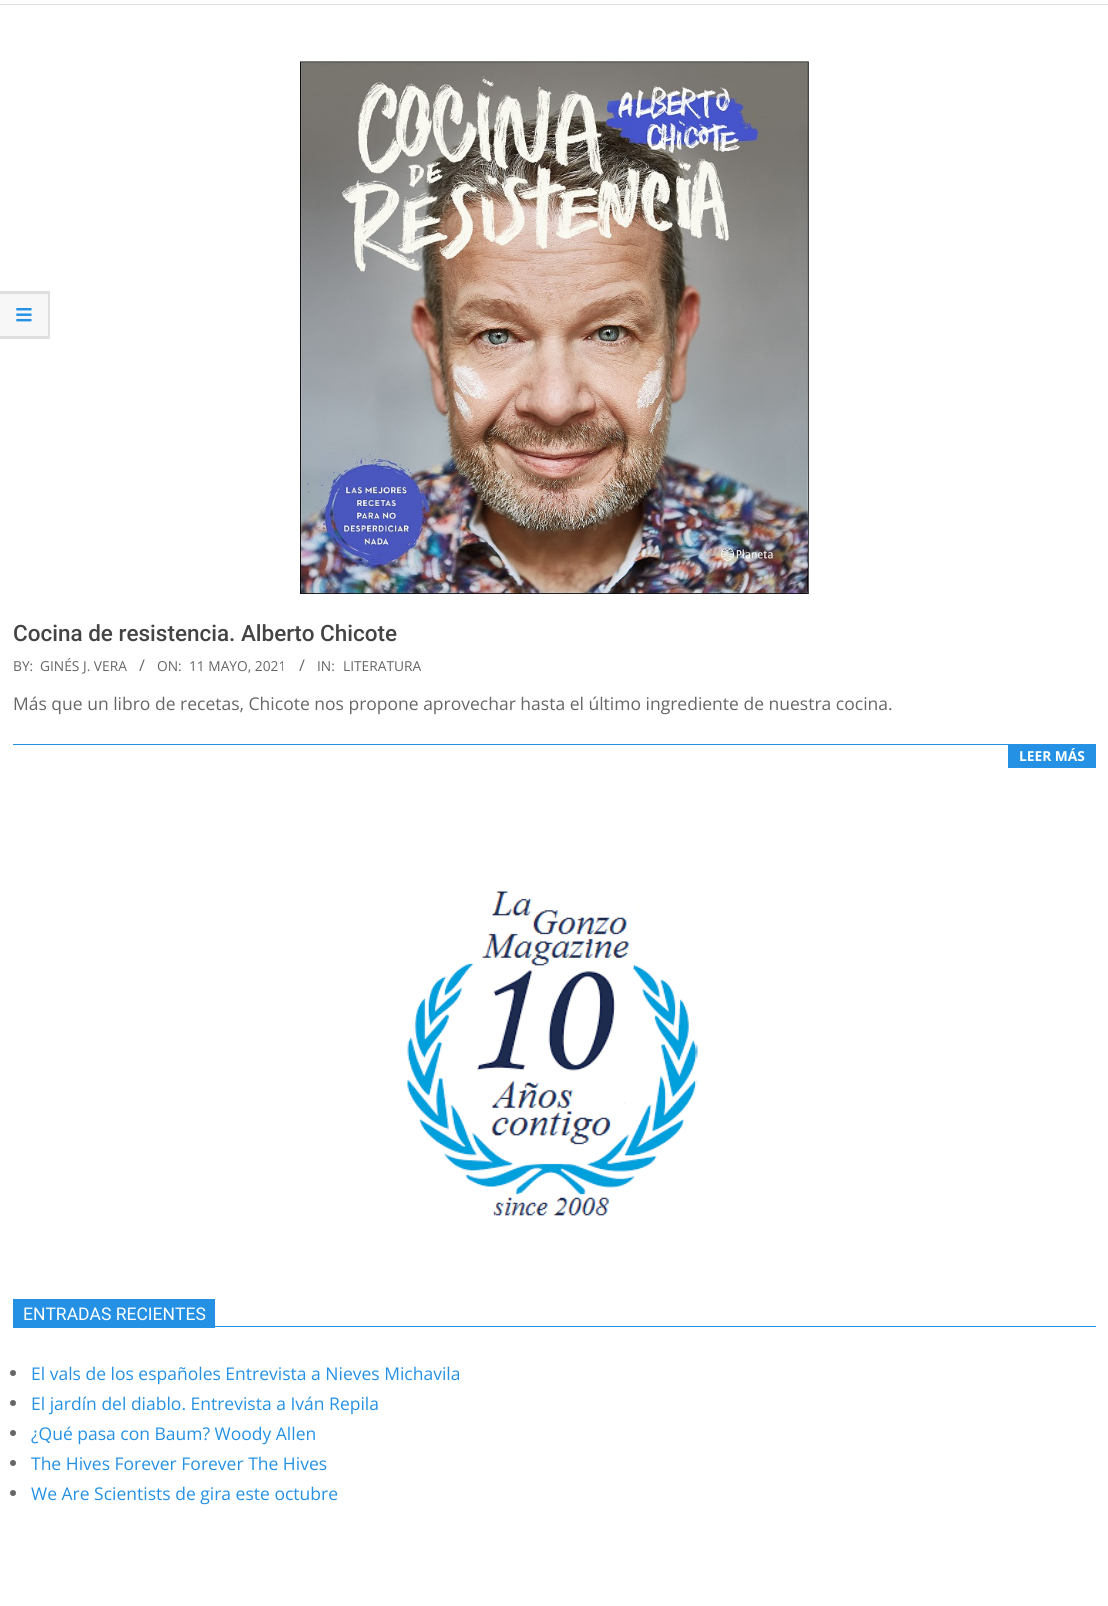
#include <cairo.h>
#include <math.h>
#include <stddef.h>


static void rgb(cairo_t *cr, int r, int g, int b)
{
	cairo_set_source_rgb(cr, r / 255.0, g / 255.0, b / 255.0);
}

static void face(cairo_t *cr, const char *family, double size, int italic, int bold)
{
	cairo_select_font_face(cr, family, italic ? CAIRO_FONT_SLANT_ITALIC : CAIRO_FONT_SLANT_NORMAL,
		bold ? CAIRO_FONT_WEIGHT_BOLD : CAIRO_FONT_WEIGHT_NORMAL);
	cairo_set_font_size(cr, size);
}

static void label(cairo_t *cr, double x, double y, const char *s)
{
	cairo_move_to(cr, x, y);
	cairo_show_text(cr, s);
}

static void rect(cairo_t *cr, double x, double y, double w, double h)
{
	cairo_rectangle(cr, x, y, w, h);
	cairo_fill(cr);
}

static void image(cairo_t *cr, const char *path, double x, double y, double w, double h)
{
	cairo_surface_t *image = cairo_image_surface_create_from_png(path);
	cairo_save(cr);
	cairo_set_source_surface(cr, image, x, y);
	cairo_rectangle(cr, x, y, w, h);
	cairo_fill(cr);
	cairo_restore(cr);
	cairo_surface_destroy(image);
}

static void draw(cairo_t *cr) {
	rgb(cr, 255, 255, 255);
	cairo_paint(cr);
	rgb(cr, 247, 247, 247);
	rect(cr, 0, 291, 50, 48);
	rgb(cr, 222, 222, 222);
	cairo_new_path(cr);
	cairo_move_to(cr, 0, 291);
	cairo_line_to(cr, 50, 291);
	cairo_line_to(cr, 48, 294);
	cairo_line_to(cr, 0, 294);
	cairo_close_path(cr);
	cairo_fill(cr);
	cairo_set_source_rgba(cr, 0, 0, 0, 0.1);
	cairo_new_path(cr);
	cairo_move_to(cr, 50, 291);
	cairo_line_to(cr, 50, 339);
	cairo_line_to(cr, 48, 336);
	cairo_line_to(cr, 48, 294);
	cairo_close_path(cr);
	cairo_fill(cr);
	cairo_new_path(cr);
	cairo_move_to(cr, 50, 339);
	cairo_line_to(cr, 0, 339);
	cairo_line_to(cr, 0, 336);
	cairo_line_to(cr, 48, 336);
	cairo_close_path(cr);
	cairo_fill(cr);
	image(cr, "image0.png", 16, 308, 16, 14);
	rgb(cr, 221, 221, 221);
	rect(cr, 0, 4, 1108, 1);
	image(cr, "image1.png", 300, 61, 509, 533);
	face(cr, "Roboto Medium", 22.5, 0, 0);
	rgb(cr, 68, 68, 68);
	label(cr, 13, 641, "Cocina de resistencia. Alberto Chicote");
	face(cr, "Open Sans", 13.75, 0, 0);
	rgb(cr, 102, 102, 102);
	label(cr, 13, 671, "BY:");
	label(cr, 40, 671, "GINÉS J. VERA");
	face(cr, "Open Sans", 16, 0, 0);
	label(cr, 139, 671, "/");
	face(cr, "Open Sans", 13.75, 0, 0);
	label(cr, 157, 671, "ON:");
	label(cr, 189, 671, "11 MAYO, 2021");
	face(cr, "Open Sans", 16, 0, 0);
	label(cr, 299, 671, "/");
	face(cr, "Open Sans", 13.75, 0, 0);
	label(cr, 317, 671, "IN:");
	label(cr, 343, 671, "LITERATURA");
	face(cr, "Open Sans", 17.5, 0, 0);
	label(cr, 13, 710, "Más que un libro de recetas, Chicote nos propone aprovechar hasta el último ingrediente de nuestra cocina.");
	rgb(cr, 36, 145, 229);
	rect(cr, 13, 744, 1083, 1);
	rect(cr, 1008, 745, 88, 23);
	face(cr, "Open Sans", 13.75, 0, 1);
	rgb(cr, 255, 255, 255);
	label(cr, 1019, 761, "LEER MÁS");
	image(cr, "image2.png", 407, 891, 291, 325);
	rgb(cr, 36, 145, 229);
	rect(cr, 13, 1299, 202, 29);
	face(cr, "Roboto", 17.5, 0, 0);
	rgb(cr, 255, 255, 255);
	label(cr, 23, 1320, "ENTRADAS RECIENTES");
	rgb(cr, 36, 145, 229);
	rect(cr, 215, 1326, 881, 1);
	rgb(cr, 102, 102, 102);
	cairo_new_path(cr);
	cairo_arc(cr, 13, 1373, 3, 0, 2 * M_PI);
	cairo_fill(cr);
	face(cr, "Open Sans", 17.5, 0, 0);
	rgb(cr, 36, 145, 229);
	label(cr, 31, 1380, "El vals de los españoles Entrevista a Nieves Michavila");
	rgb(cr, 102, 102, 102);
	cairo_new_path(cr);
	cairo_arc(cr, 13, 1403, 3, 0, 2 * M_PI);
	cairo_fill(cr);
	rgb(cr, 36, 145, 229);
	label(cr, 31, 1410, "El jardín del diablo. Entrevista a Iván Repila");
	rgb(cr, 102, 102, 102);
	cairo_new_path(cr);
	cairo_arc(cr, 13, 1433, 3, 0, 2 * M_PI);
	cairo_fill(cr);
	rgb(cr, 36, 145, 229);
	label(cr, 31, 1440, "¿Qué pasa con Baum? Woody Allen");
	rgb(cr, 102, 102, 102);
	cairo_new_path(cr);
	cairo_arc(cr, 13, 1463, 3, 0, 2 * M_PI);
	cairo_fill(cr);
	rgb(cr, 36, 145, 229);
	label(cr, 31, 1470, "The Hives Forever Forever The Hives");
	rgb(cr, 102, 102, 102);
	cairo_new_path(cr);
	cairo_arc(cr, 13, 1493, 3, 0, 2 * M_PI);
	cairo_fill(cr);
	rgb(cr, 36, 145, 229);
	label(cr, 31, 1500, "We Are Scientists de gira este octubre");
}

int main(void) {
	cairo_surface_t *surface = cairo_image_surface_create(CAIRO_FORMAT_RGB24, 1108, 1606);
	cairo_t *cr = cairo_create(surface);
	cairo_font_options_t *options = cairo_font_options_create();
	cairo_font_options_set_hint_metrics(options, CAIRO_HINT_METRICS_OFF);
	cairo_font_options_set_hint_style(options, CAIRO_HINT_STYLE_NONE);
	cairo_set_font_options(cr, options);
	cairo_set_miter_limit(cr, 4);
	draw(cr);
	cairo_surface_write_to_png(surface, "render.png");
	cairo_font_options_destroy(options);
	cairo_destroy(cr);
	cairo_surface_destroy(surface);
	return 0;
}
